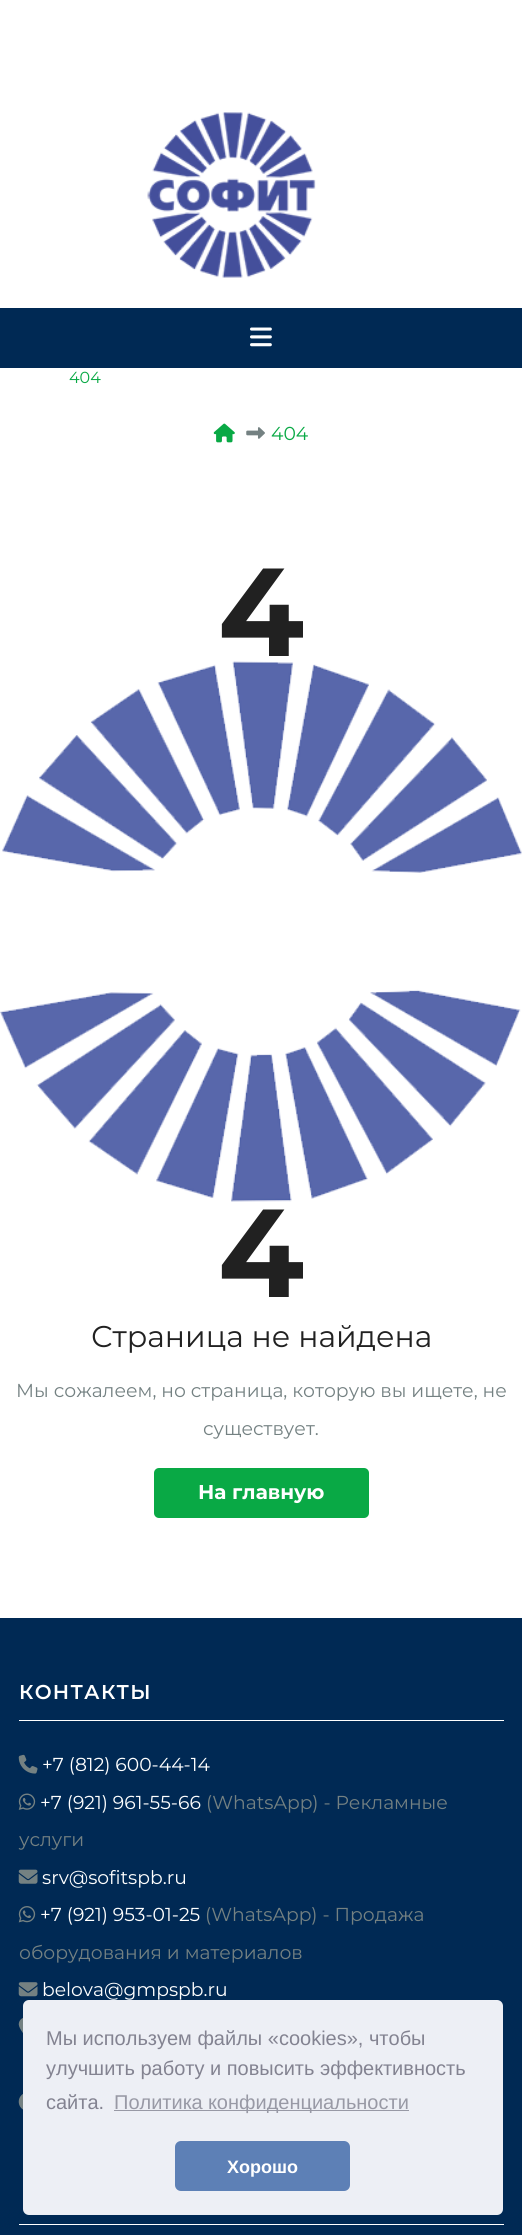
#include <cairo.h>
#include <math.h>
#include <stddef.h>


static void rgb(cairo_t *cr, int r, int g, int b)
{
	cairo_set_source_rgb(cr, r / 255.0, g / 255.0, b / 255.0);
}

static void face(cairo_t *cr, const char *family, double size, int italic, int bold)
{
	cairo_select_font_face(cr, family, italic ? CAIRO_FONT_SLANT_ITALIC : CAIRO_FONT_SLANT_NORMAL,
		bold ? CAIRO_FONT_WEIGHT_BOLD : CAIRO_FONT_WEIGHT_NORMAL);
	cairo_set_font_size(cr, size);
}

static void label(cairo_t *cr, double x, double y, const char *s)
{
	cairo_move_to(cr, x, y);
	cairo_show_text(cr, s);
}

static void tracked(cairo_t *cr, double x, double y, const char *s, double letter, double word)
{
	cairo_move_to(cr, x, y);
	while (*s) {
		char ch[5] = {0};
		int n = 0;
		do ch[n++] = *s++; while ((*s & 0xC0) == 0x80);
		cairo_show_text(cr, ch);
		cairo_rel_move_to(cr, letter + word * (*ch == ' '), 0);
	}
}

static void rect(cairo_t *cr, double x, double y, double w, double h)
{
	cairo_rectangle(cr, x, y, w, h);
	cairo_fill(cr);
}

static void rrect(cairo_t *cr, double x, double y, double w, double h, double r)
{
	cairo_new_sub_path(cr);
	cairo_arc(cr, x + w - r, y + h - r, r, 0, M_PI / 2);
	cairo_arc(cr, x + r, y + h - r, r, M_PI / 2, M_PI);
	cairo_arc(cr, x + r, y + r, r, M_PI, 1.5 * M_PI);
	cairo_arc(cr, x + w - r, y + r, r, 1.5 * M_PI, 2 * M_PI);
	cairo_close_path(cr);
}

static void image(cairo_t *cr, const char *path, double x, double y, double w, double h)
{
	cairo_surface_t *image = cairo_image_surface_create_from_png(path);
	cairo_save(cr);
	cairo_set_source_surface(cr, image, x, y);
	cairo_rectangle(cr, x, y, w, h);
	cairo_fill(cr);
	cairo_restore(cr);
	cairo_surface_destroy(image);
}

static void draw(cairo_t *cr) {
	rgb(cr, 255, 255, 255);
	cairo_paint(cr);
	image(cr, "image0.png", 147, 112, 169, 166);
	rgb(cr, 0, 41, 84);
	rect(cr, 0, 308, 522, 60);
	image(cr, "image1.png", 250, 327, 22, 20);
	face(cr, "Montserrat", 16, 0, 0);
	rgb(cr, 9, 169, 69);
	label(cr, 69, 383, "404");
	image(cr, "image2.png", 213, 423, 22, 20);
	image(cr, "image3.png", 246, 427, 19, 12);
	face(cr, "Montserrat", 18.75, 0, 0);
	label(cr, 271, 440, "404");
	face(cr, "Montserrat", 125, 0, 1);
	rgb(cr, 33, 33, 33);
	label(cr, 218, 656, "4");
	image(cr, "image4.png", 0, 661, 522, 541);
	label(cr, 218, 1297, "4");
	face(cr, "Montserrat", 30, 0, 0);
	label(cr, 91, 1347, "Страница не найдена");
	face(cr, "Montserrat", 18.75, 0, 0);
	rgb(cr, 116, 129, 130);
	label(cr, 16, 1397, "Мы сожалеем, но страница, которую вы ищете, не");
	label(cr, 203, 1435, "существует.");
	rgb(cr, 9, 169, 69);
	rrect(cr, 154, 1468, 215, 50, 5);
	cairo_fill(cr);
	face(cr, "Montserrat", 20, 0, 1);
	rgb(cr, 255, 255, 255);
	label(cr, 198, 1499, "На главную");
	rgb(cr, 0, 41, 84);
	rect(cr, 0, 1618, 522, 617);
	rgb(cr, 255, 255, 255);
	rect(cr, 19, 1720, 485, 1);
	face(cr, "Montserrat SemiBold", 20, 0, 0);
	tracked(cr, 19, 1699, "КОНТАКТЫ", 1.25, 0);
	image(cr, "image5.png", 18, 1754, 20, 20);
	face(cr, "Montserrat", 18.75, 0, 0);
	label(cr, 42, 1771, "+7 (812) 600-44-14");
	image(cr, "image6.png", 18, 1793, 18, 17);
	label(cr, 40, 1809, "+7 (921) 961-55-66");
	rgb(cr, 116, 129, 130);
	label(cr, 206, 1809, "(WhatsApp) - Рекламные");
	label(cr, 19, 1846, "услуги");
	image(cr, "image7.png", 18, 1869, 20, 15);
	rgb(cr, 255, 255, 255);
	label(cr, 42, 1884, "srv@sofitspb.ru");
	image(cr, "image8.png", 18, 1906, 18, 17);
	label(cr, 40, 1921, "+7 (921) 953-01-25");
	rgb(cr, 116, 129, 130);
	label(cr, 205, 1921, "(WhatsApp) - Продажа");
	label(cr, 19, 1959, "оборудования и материалов");
	image(cr, "image9.png", 18, 1982, 20, 15);
	rgb(cr, 255, 255, 255);
	label(cr, 42, 1996, "belova@gmpspb.ru");
	image(cr, "image10.png", 18, 2018, 5, 15);
	image(cr, "image11.png", 18, 2094, 5, 16);
	rect(cr, 19, 2224, 485, 1);
	rgb(cr, 237, 239, 245);
	rrect(cr, 23, 2000, 480, 215, 6);
	cairo_fill(cr);
	face(cr, "Liberation Sans", 20, 0, 0);
	rgb(cr, 131, 131, 145);
	label(cr, 46, 2045, "Мы используем файлы «cookies», чтобы");
	label(cr, 46, 2075, "улучшить работу и повысить эффективность");
	label(cr, 46, 2109, "сайта.");
	rgb(cr, 152, 153, 165);
	rect(cr, 114, 2110, 295, 1);
	label(cr, 114, 2109, "Политика конфиденциальности");
	rgb(cr, 93, 128, 182);
	rrect(cr, 175, 2141, 175, 50, 6);
	cairo_fill(cr);
	face(cr, "Liberation Sans", 18, 0, 1);
	rgb(cr, 255, 255, 255);
	label(cr, 227, 2173, "Хорошо");
}

int main(void) {
	cairo_surface_t *surface = cairo_image_surface_create(CAIRO_FORMAT_RGB24, 522, 2235);
	cairo_t *cr = cairo_create(surface);
	cairo_font_options_t *options = cairo_font_options_create();
	cairo_font_options_set_hint_metrics(options, CAIRO_HINT_METRICS_OFF);
	cairo_font_options_set_hint_style(options, CAIRO_HINT_STYLE_NONE);
	cairo_set_font_options(cr, options);
	cairo_set_miter_limit(cr, 4);
	draw(cr);
	cairo_surface_write_to_png(surface, "render.png");
	cairo_font_options_destroy(options);
	cairo_destroy(cr);
	cairo_surface_destroy(surface);
	return 0;
}
